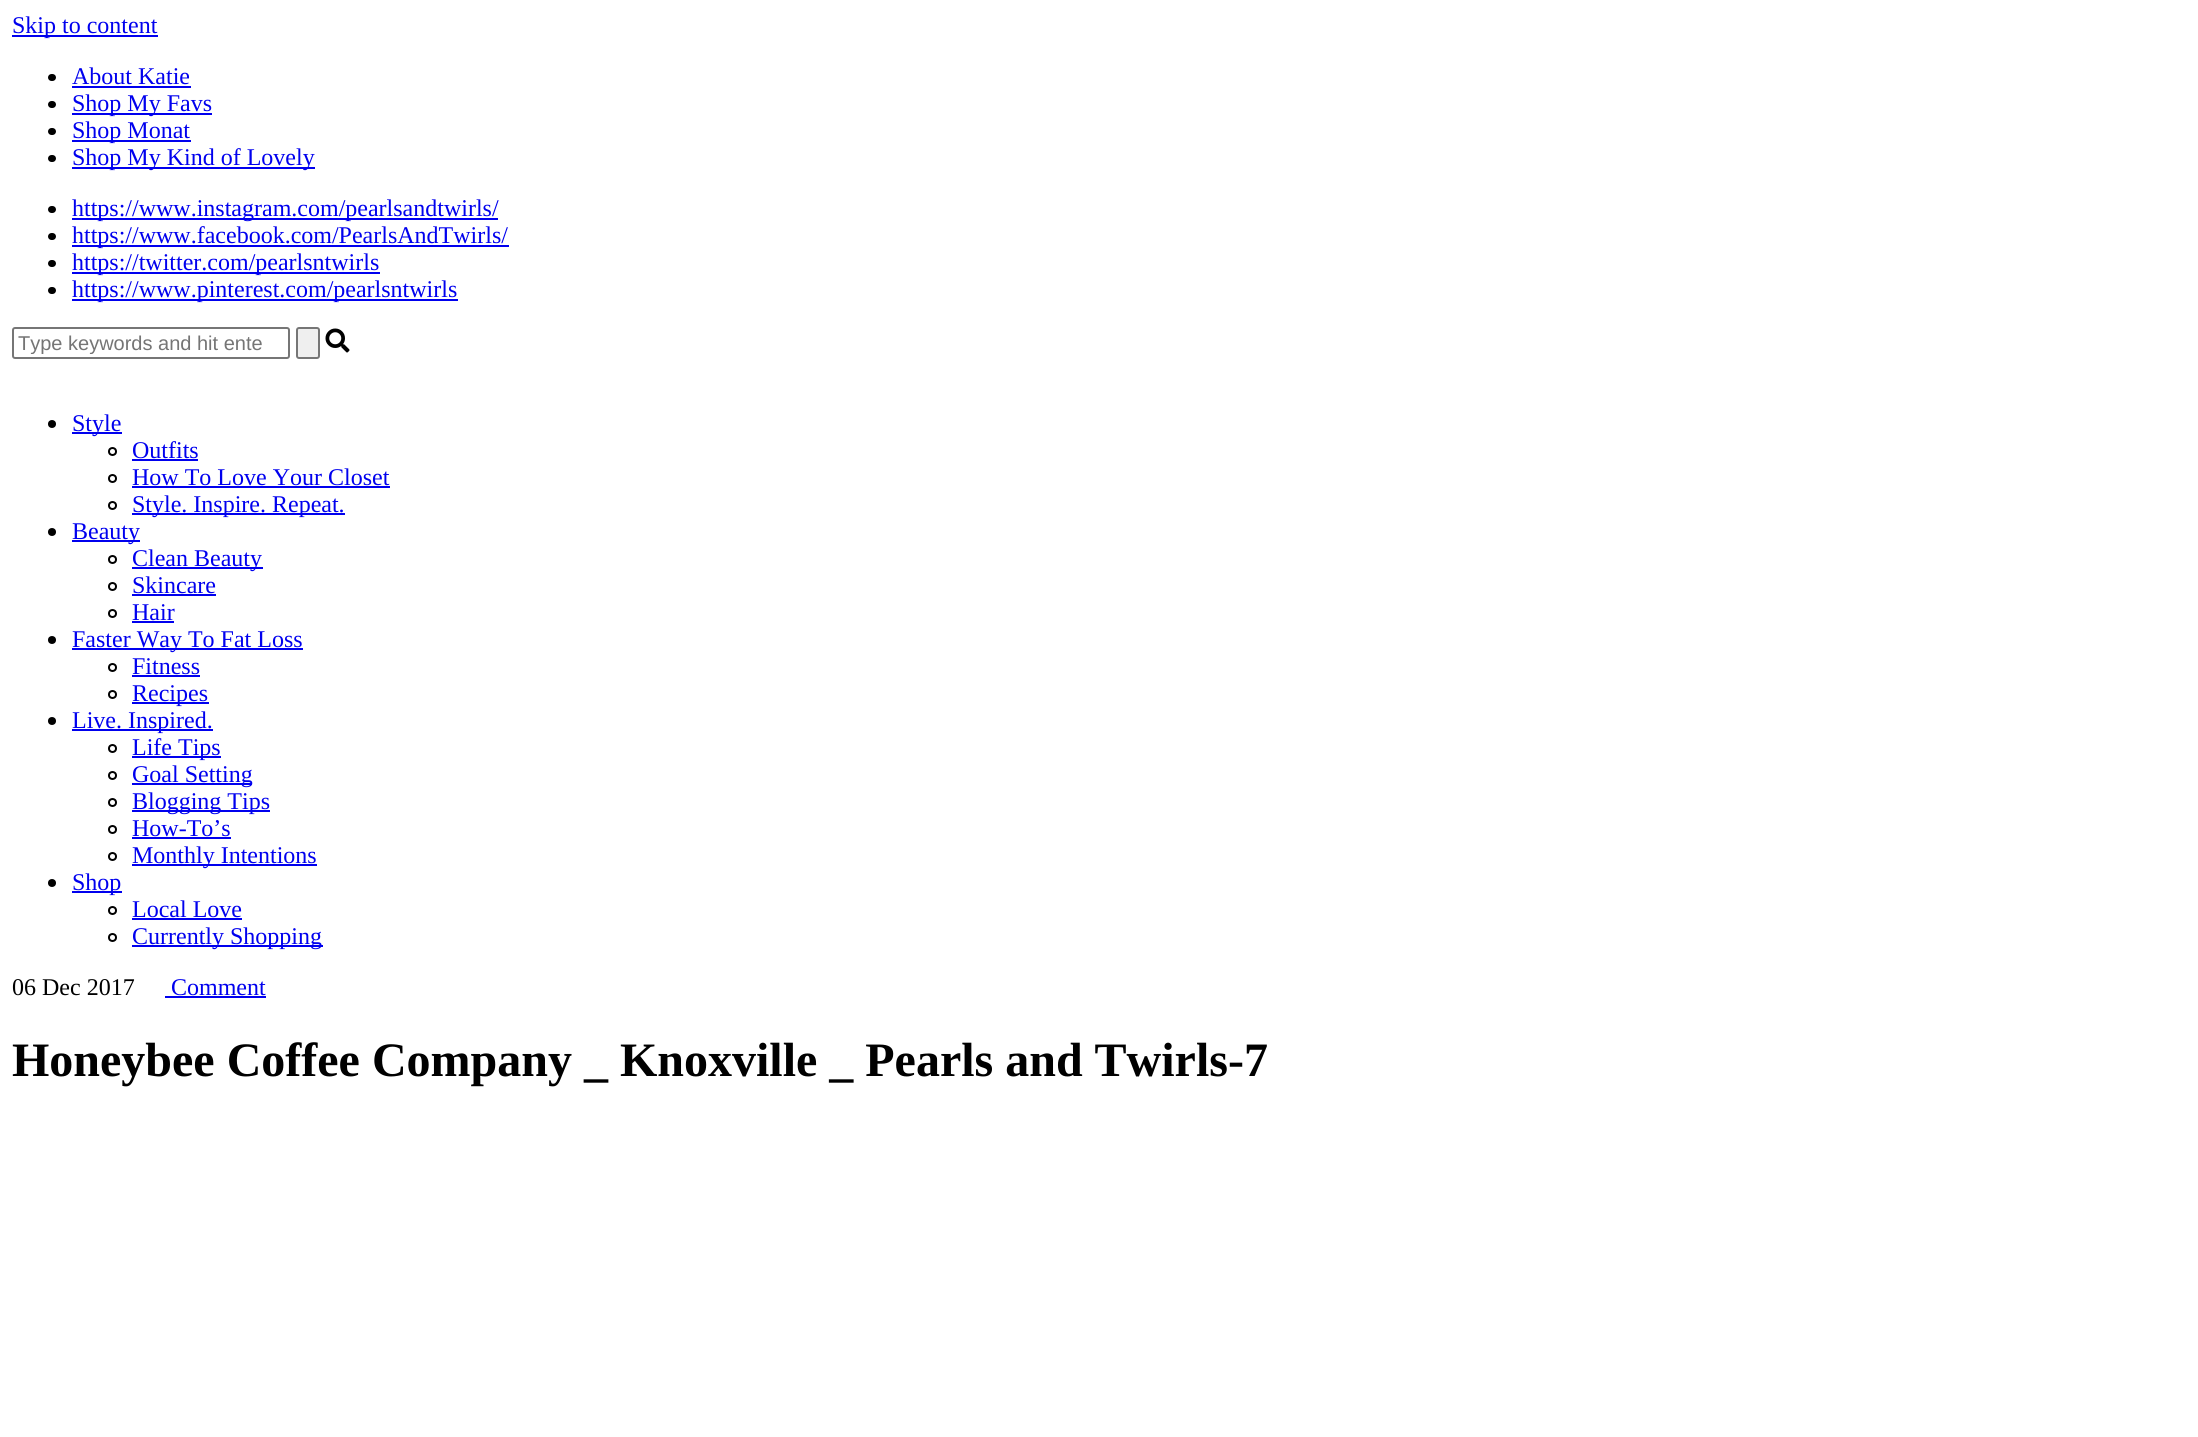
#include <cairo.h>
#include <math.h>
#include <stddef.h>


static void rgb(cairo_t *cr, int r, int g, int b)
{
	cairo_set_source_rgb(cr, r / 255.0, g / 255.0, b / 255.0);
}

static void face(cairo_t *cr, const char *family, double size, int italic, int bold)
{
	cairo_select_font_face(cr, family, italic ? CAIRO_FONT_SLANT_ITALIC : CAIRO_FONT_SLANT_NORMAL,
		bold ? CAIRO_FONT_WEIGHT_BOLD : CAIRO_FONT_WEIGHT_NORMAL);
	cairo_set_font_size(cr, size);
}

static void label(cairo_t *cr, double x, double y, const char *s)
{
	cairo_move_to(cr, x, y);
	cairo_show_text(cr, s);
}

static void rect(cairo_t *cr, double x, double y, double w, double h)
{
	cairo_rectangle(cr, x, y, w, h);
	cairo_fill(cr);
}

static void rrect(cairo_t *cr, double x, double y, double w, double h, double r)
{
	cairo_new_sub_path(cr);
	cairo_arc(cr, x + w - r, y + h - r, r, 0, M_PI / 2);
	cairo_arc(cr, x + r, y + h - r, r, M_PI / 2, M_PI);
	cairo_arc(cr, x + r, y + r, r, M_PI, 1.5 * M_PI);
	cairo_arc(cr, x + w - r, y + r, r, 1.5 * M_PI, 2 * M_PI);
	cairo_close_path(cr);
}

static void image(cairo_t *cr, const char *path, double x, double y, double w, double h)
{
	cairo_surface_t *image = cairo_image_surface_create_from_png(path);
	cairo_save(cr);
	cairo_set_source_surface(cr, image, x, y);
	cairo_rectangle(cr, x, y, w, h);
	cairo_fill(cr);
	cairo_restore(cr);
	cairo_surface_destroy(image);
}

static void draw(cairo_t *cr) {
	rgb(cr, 255, 255, 255);
	cairo_paint(cr);
	rgb(cr, 0, 0, 238);
	rect(cr, 12, 35, 146, 2);
	face(cr, "Liberation Serif", 24, 0, 0);
	label(cr, 12, 33, "Skip to content");
	rgb(cr, 0, 0, 0);
	rrect(cr, 48, 74, 8, 7, 3.5);
	cairo_fill(cr);
	rgb(cr, 0, 0, 238);
	label(cr, 72, 84, "About Katie");
	rect(cr, 72, 86, 119, 2);
	rgb(cr, 0, 0, 0);
	rrect(cr, 48, 101, 8, 7, 3.5);
	cairo_fill(cr);
	rgb(cr, 0, 0, 238);
	rect(cr, 72, 113, 140, 2);
	label(cr, 72, 111, "Shop My Favs");
	rgb(cr, 0, 0, 0);
	rrect(cr, 48, 128, 8, 7, 3.5);
	cairo_fill(cr);
	rgb(cr, 0, 0, 238);
	rect(cr, 72, 140, 119, 2);
	label(cr, 72, 138, "Shop Monat");
	rgb(cr, 0, 0, 0);
	rrect(cr, 48, 155, 8, 7, 3.5);
	cairo_fill(cr);
	rgb(cr, 0, 0, 238);
	rect(cr, 72, 167, 243, 2);
	label(cr, 72, 165, "Shop My Kind of Lovely");
	rgb(cr, 0, 0, 0);
	rrect(cr, 48, 206, 8, 7, 3.5);
	cairo_fill(cr);
	rgb(cr, 0, 0, 238);
	rect(cr, 72, 218, 426, 2);
	label(cr, 72, 216, "https://www.instagram.com/pearlsandtwirls/");
	rgb(cr, 0, 0, 0);
	rrect(cr, 48, 233, 8, 7, 3.5);
	cairo_fill(cr);
	rgb(cr, 0, 0, 238);
	rect(cr, 72, 245, 437, 2);
	label(cr, 72, 243, "https://www.facebook.com/PearlsAndTwirls/");
	rgb(cr, 0, 0, 0);
	rrect(cr, 48, 260, 8, 7, 3.5);
	cairo_fill(cr);
	rgb(cr, 0, 0, 238);
	rect(cr, 72, 272, 308, 2);
	label(cr, 72, 270, "https://twitter.com/pearlsntwirls");
	rgb(cr, 0, 0, 0);
	rrect(cr, 48, 287, 8, 7, 3.5);
	cairo_fill(cr);
	rgb(cr, 0, 0, 238);
	rect(cr, 72, 299, 386, 2);
	label(cr, 72, 297, "https://www.pinterest.com/pearlsntwirls");
	rrect(cr, 13, 328, 276, 30, 2);
	rgb(cr, 118, 118, 118);
	cairo_stroke(cr);
	cairo_save(cr);
	cairo_rectangle(cr, 18, 332, 246, 22);
	cairo_clip(cr);
	face(cr, "Liberation Sans", 20, 0, 0);
	rgb(cr, 117, 117, 117);
	label(cr, 18, 350, "Type keywords and hit ente");
	cairo_restore(cr);
	rgb(cr, 239, 239, 239);
	rrect(cr, 297, 328, 22, 30, 2);
	cairo_fill_preserve(cr);
	rgb(cr, 118, 118, 118);
	cairo_stroke(cr);
	image(cr, "image0.png", 325, 328, 25, 25);
	rgb(cr, 0, 0, 0);
	cairo_arc(cr, 52, 424, 4, 0, 2 * M_PI);
	cairo_fill(cr);
	rgb(cr, 0, 0, 238);
	rect(cr, 72, 432, 50, 2);
	label(cr, 72, 431, "Style");
	cairo_new_path(cr);
	cairo_arc(cr, 112.5, 451.5, 3.5, 0, 2 * M_PI);
	rgb(cr, 0, 0, 0);
	cairo_stroke(cr);
	rgb(cr, 0, 0, 238);
	label(cr, 132, 458, "Outfits");
	rect(cr, 132, 459, 66, 2);
	cairo_new_path(cr);
	cairo_arc(cr, 112.5, 478.5, 3.5, 0, 2 * M_PI);
	rgb(cr, 0, 0, 0);
	cairo_stroke(cr);
	rgb(cr, 0, 0, 238);
	label(cr, 132, 485, "How To Love Your Closet");
	rect(cr, 132, 486, 258, 2);
	cairo_new_path(cr);
	cairo_arc(cr, 112.5, 505.5, 3.5, 0, 2 * M_PI);
	rgb(cr, 0, 0, 0);
	cairo_stroke(cr);
	rgb(cr, 0, 0, 238);
	rect(cr, 132, 513, 213, 2);
	label(cr, 132, 512, "Style. Inspire. Repeat.");
	rgb(cr, 0, 0, 0);
	cairo_new_path(cr);
	cairo_arc(cr, 52, 532, 4, 0, 2 * M_PI);
	cairo_fill(cr);
	rgb(cr, 0, 0, 238);
	rect(cr, 72, 540, 68, 2);
	label(cr, 72, 539, "Beauty");
	cairo_new_path(cr);
	cairo_arc(cr, 112.5, 559.5, 3.5, 0, 2 * M_PI);
	rgb(cr, 0, 0, 0);
	cairo_stroke(cr);
	rgb(cr, 0, 0, 238);
	rect(cr, 132, 567, 131, 2);
	label(cr, 132, 566, "Clean Beauty");
	cairo_new_path(cr);
	cairo_arc(cr, 112.5, 586.5, 3.5, 0, 2 * M_PI);
	rgb(cr, 0, 0, 0);
	cairo_stroke(cr);
	rgb(cr, 0, 0, 238);
	label(cr, 132, 593, "Skincare");
	rect(cr, 132, 594, 84, 2);
	cairo_new_path(cr);
	cairo_arc(cr, 112.5, 613.5, 3.5, 0, 2 * M_PI);
	rgb(cr, 0, 0, 0);
	cairo_stroke(cr);
	rgb(cr, 0, 0, 238);
	label(cr, 132, 620, "Hair");
	rect(cr, 132, 621, 42, 2);
	rgb(cr, 0, 0, 0);
	cairo_new_path(cr);
	cairo_arc(cr, 52, 640, 4, 0, 2 * M_PI);
	cairo_fill(cr);
	rgb(cr, 0, 0, 238);
	rect(cr, 72, 648, 231, 2);
	label(cr, 72, 647, "Faster Way To Fat Loss");
	cairo_new_path(cr);
	cairo_arc(cr, 112.5, 667.5, 3.5, 0, 2 * M_PI);
	rgb(cr, 0, 0, 0);
	cairo_stroke(cr);
	rgb(cr, 0, 0, 238);
	label(cr, 132, 674, "Fitness");
	rect(cr, 132, 675, 68, 2);
	cairo_new_path(cr);
	cairo_arc(cr, 112.5, 694.5, 3.5, 0, 2 * M_PI);
	rgb(cr, 0, 0, 0);
	cairo_stroke(cr);
	rgb(cr, 0, 0, 238);
	rect(cr, 132, 702, 77, 2);
	label(cr, 132, 701, "Recipes");
	rgb(cr, 0, 0, 0);
	cairo_new_path(cr);
	cairo_arc(cr, 52, 721, 4, 0, 2 * M_PI);
	cairo_fill(cr);
	rgb(cr, 0, 0, 238);
	rect(cr, 72, 729, 141, 2);
	label(cr, 72, 728, "Live. Inspired.");
	cairo_new_path(cr);
	cairo_arc(cr, 112.5, 748.5, 3.5, 0, 2 * M_PI);
	rgb(cr, 0, 0, 0);
	cairo_stroke(cr);
	rgb(cr, 0, 0, 238);
	rect(cr, 132, 756, 89, 2);
	label(cr, 132, 755, "Life Tips");
	cairo_new_path(cr);
	cairo_arc(cr, 112.5, 775.5, 3.5, 0, 2 * M_PI);
	rgb(cr, 0, 0, 0);
	cairo_stroke(cr);
	rgb(cr, 0, 0, 238);
	rect(cr, 132, 783, 120, 2);
	label(cr, 132, 782, "Goal Setting");
	cairo_new_path(cr);
	cairo_arc(cr, 112.5, 802.5, 3.5, 0, 2 * M_PI);
	rgb(cr, 0, 0, 0);
	cairo_stroke(cr);
	rgb(cr, 0, 0, 238);
	rect(cr, 132, 810, 138, 2);
	label(cr, 132, 809, "Blogging Tips");
	cairo_new_path(cr);
	cairo_arc(cr, 112.5, 829.5, 3.5, 0, 2 * M_PI);
	rgb(cr, 0, 0, 0);
	cairo_stroke(cr);
	rgb(cr, 0, 0, 238);
	label(cr, 132, 836, "How-To’s");
	rect(cr, 132, 837, 99, 2);
	cairo_new_path(cr);
	cairo_arc(cr, 112.5, 856.5, 3.5, 0, 2 * M_PI);
	rgb(cr, 0, 0, 0);
	cairo_stroke(cr);
	rgb(cr, 0, 0, 238);
	rect(cr, 132, 864, 185, 2);
	label(cr, 132, 863, "Monthly Intentions");
	rgb(cr, 0, 0, 0);
	cairo_new_path(cr);
	cairo_arc(cr, 52, 883, 4, 0, 2 * M_PI);
	cairo_fill(cr);
	rgb(cr, 0, 0, 238);
	rect(cr, 72, 891, 50, 2);
	label(cr, 72, 890, "Shop");
	cairo_new_path(cr);
	cairo_arc(cr, 112.5, 910.5, 3.5, 0, 2 * M_PI);
	rgb(cr, 0, 0, 0);
	cairo_stroke(cr);
	rgb(cr, 0, 0, 238);
	label(cr, 132, 917, "Local Love");
	rect(cr, 132, 918, 110, 2);
	cairo_new_path(cr);
	cairo_arc(cr, 112.5, 937.5, 3.5, 0, 2 * M_PI);
	rgb(cr, 0, 0, 0);
	cairo_stroke(cr);
	rgb(cr, 0, 0, 238);
	rect(cr, 132, 945, 191, 2);
	label(cr, 132, 944, "Currently Shopping");
	rgb(cr, 0, 0, 0);
	label(cr, 12, 995, "06 Dec 2017");
	rgb(cr, 0, 0, 238);
	label(cr, 171, 995, "Comment");
	rect(cr, 165, 996, 101, 2);
	face(cr, "Liberation Serif", 48, 0, 1);
	rgb(cr, 0, 0, 0);
	label(cr, 12, 1076, "Honeybee Coffee Company _ Knoxville _ Pearls and Twirls-7");
}

int main(void) {
	cairo_surface_t *surface = cairo_image_surface_create(CAIRO_FORMAT_RGB24, 2198, 1437);
	cairo_t *cr = cairo_create(surface);
	cairo_font_options_t *options = cairo_font_options_create();
	cairo_font_options_set_hint_metrics(options, CAIRO_HINT_METRICS_OFF);
	cairo_font_options_set_hint_style(options, CAIRO_HINT_STYLE_NONE);
	cairo_set_font_options(cr, options);
	cairo_set_miter_limit(cr, 4);
	draw(cr);
	cairo_surface_write_to_png(surface, "render.png");
	cairo_font_options_destroy(options);
	cairo_destroy(cr);
	cairo_surface_destroy(surface);
	return 0;
}
